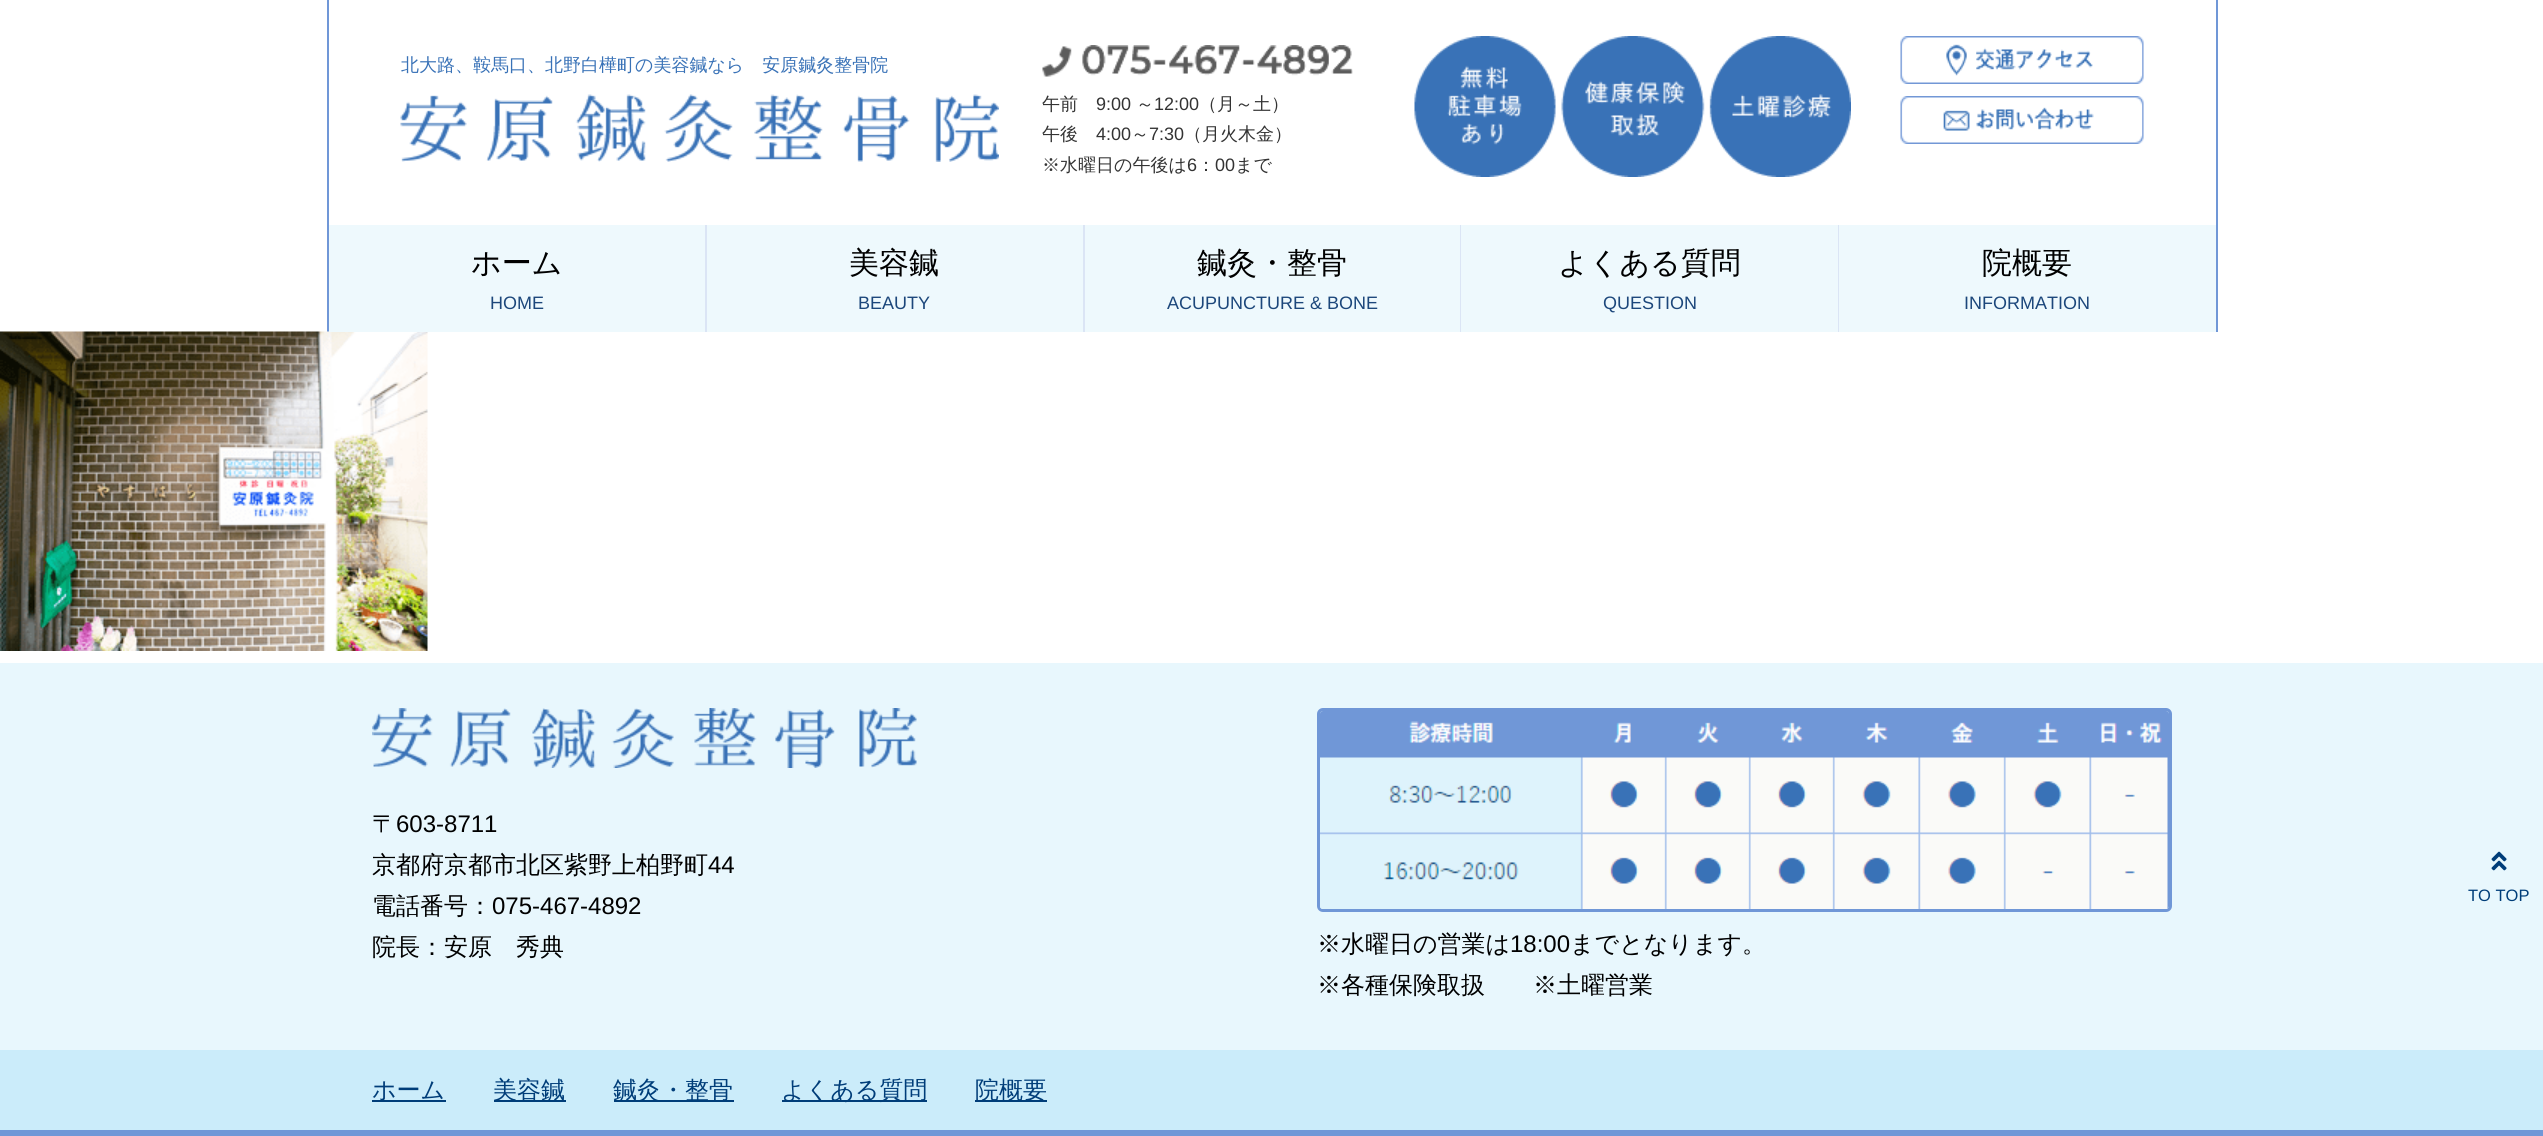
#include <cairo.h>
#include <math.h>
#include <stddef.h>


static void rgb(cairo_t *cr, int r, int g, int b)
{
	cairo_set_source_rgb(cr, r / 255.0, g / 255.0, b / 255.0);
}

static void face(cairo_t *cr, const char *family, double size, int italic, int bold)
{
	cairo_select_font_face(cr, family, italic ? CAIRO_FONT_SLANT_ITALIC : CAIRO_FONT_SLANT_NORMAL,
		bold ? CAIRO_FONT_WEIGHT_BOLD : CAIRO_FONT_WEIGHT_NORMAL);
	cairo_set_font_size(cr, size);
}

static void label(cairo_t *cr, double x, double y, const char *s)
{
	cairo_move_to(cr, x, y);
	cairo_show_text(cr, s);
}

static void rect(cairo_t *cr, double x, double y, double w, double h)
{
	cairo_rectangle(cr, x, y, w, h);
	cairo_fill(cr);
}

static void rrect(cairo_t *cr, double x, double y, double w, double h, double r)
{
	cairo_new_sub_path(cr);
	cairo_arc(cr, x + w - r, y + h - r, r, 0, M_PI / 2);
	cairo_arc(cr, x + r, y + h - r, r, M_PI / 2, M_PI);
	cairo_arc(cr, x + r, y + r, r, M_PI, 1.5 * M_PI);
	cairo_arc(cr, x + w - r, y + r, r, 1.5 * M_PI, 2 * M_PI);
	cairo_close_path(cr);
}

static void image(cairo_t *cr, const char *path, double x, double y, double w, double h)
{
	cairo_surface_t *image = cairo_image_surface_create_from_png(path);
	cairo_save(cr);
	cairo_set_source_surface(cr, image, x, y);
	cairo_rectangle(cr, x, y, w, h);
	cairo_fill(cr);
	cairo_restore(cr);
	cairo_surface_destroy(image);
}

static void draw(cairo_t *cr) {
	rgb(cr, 255, 255, 255);
	cairo_paint(cr);
	rgb(cr, 112, 151, 215);
	rect(cr, 2216, 0, 2, 332);
	rect(cr, 327, 0, 2, 332);
	face(cr, "WenQuanYi Zen Hei Medium", 18, 0, 0);
	rgb(cr, 57, 114, 183);
	label(cr, 401, 71, "北大路、鞍馬口、北野白樺町の美容鍼なら　安原鍼灸整骨院");
	image(cr, "image0.png", 400, 94, 599, 68);
	image(cr, "image1.png", 1042, 45, 311, 32);
	rgb(cr, 51, 51, 51);
	label(cr, 1042, 110, "午前");
	face(cr, "Liberation Sans", 18, 0, 0);
	label(cr, 1096, 110, "9:00");
	face(cr, "WenQuanYi Zen Hei Medium", 18, 0, 0);
	label(cr, 1136, 110, "～");
	face(cr, "Liberation Sans", 18, 0, 0);
	label(cr, 1154, 110, "12:00");
	face(cr, "WenQuanYi Zen Hei Medium", 18, 0, 0);
	label(cr, 1199, 110, "（月～土）");
	label(cr, 1042, 140, "午後");
	face(cr, "Liberation Sans", 18, 0, 0);
	label(cr, 1096, 140, "4:00");
	face(cr, "WenQuanYi Zen Hei Medium", 18, 0, 0);
	label(cr, 1131, 140, "～");
	face(cr, "Liberation Sans", 18, 0, 0);
	label(cr, 1149, 140, "7:30");
	face(cr, "WenQuanYi Zen Hei Medium", 18, 0, 0);
	label(cr, 1184, 140, "（月火木金）");
	label(cr, 1042, 171, "※水曜日の午後は");
	face(cr, "Liberation Sans", 18, 0, 0);
	label(cr, 1187, 171, "6");
	face(cr, "WenQuanYi Zen Hei Medium", 18, 0, 0);
	label(cr, 1197, 171, "：");
	face(cr, "Liberation Sans", 18, 0, 0);
	label(cr, 1215, 171, "00");
	face(cr, "WenQuanYi Zen Hei Medium", 18, 0, 0);
	label(cr, 1235, 171, "まで");
	image(cr, "image2.png", 1414, 36, 437, 141);
	image(cr, "image3.png", 1900, 36, 244, 48);
	image(cr, "image4.png", 1900, 96, 244, 48);
	image(cr, "image5.png", 0, 331, 428, 320);
	rgb(cr, 238, 249, 253);
	rect(cr, 329, 225, 376, 107);
	face(cr, "WenQuanYi Zen Hei Medium", 30, 0, 0);
	rgb(cr, 0, 0, 0);
	label(cr, 471, 273, "ホーム");
	face(cr, "Liberation Sans", 18, 0, 0);
	rgb(cr, 28, 71, 123);
	label(cr, 490, 309, "HOME");
	rgb(cr, 219, 229, 245);
	rect(cr, 705, 225, 2, 107);
	rgb(cr, 238, 249, 253);
	rect(cr, 707, 225, 376, 107);
	face(cr, "WenQuanYi Zen Hei Medium", 30, 0, 0);
	rgb(cr, 0, 0, 0);
	label(cr, 849, 273, "美容鍼");
	face(cr, "Liberation Sans", 18, 0, 0);
	rgb(cr, 28, 71, 123);
	label(cr, 858, 309, "BEAUTY");
	rgb(cr, 219, 229, 245);
	rect(cr, 1083, 225, 2, 107);
	rgb(cr, 238, 249, 253);
	rect(cr, 1085, 225, 375, 107);
	face(cr, "WenQuanYi Zen Hei Medium", 30, 0, 0);
	rgb(cr, 0, 0, 0);
	label(cr, 1197, 273, "鍼灸・整骨");
	face(cr, "Liberation Sans", 18, 0, 0);
	rgb(cr, 28, 71, 123);
	label(cr, 1167, 309, "ACUPUNCTURE & BONE");
	rgb(cr, 219, 229, 245);
	rect(cr, 1460, 225, 1, 107);
	rgb(cr, 238, 249, 253);
	rect(cr, 1461, 225, 377, 107);
	face(cr, "WenQuanYi Zen Hei Medium", 30, 0, 0);
	rgb(cr, 0, 0, 0);
	label(cr, 1558, 273, "よくある質問");
	face(cr, "Liberation Sans", 18, 0, 0);
	rgb(cr, 28, 71, 123);
	label(cr, 1603, 309, "QUESTION");
	rgb(cr, 219, 229, 245);
	rect(cr, 1838, 225, 1, 107);
	rgb(cr, 238, 249, 253);
	rect(cr, 1839, 225, 377, 107);
	face(cr, "WenQuanYi Zen Hei Medium", 30, 0, 0);
	rgb(cr, 0, 0, 0);
	label(cr, 1982, 273, "院概要");
	face(cr, "Liberation Sans", 18, 0, 0);
	rgb(cr, 28, 71, 123);
	label(cr, 1964, 309, "INFORMATION");
	rgb(cr, 232, 247, 253);
	rect(cr, 0, 663, 2543, 387);
	image(cr, "image6.png", 372, 708, 545, 60);
	face(cr, "WenQuanYi Zen Hei Medium", 24, 0, 0);
	rgb(cr, 0, 0, 0);
	label(cr, 372, 832, "〒");
	face(cr, "Liberation Sans", 24, 0, 0);
	label(cr, 396, 832, "603-8711");
	face(cr, "WenQuanYi Zen Hei Medium", 24, 0, 0);
	label(cr, 372, 873, "京都府京都市北区紫野上柏野町");
	face(cr, "Liberation Sans", 24, 0, 0);
	label(cr, 708, 873, "44");
	face(cr, "WenQuanYi Zen Hei Medium", 24, 0, 0);
	label(cr, 372, 914, "電話番号：");
	face(cr, "Liberation Sans", 24, 0, 0);
	label(cr, 492, 914, "075-467-4892");
	face(cr, "WenQuanYi Zen Hei Medium", 24, 0, 0);
	label(cr, 372, 955, "院長：安原　秀典");
	rrect(cr, 1318.5, 709.5, 852, 201, 4.5);
	rgb(cr, 112, 151, 215);
	cairo_set_line_width(cr, 3);
	cairo_stroke(cr);
	image(cr, "image7.png", 1320, 711, 849, 198);
	rgb(cr, 0, 0, 0);
	label(cr, 1317, 952, "※水曜日の営業は");
	face(cr, "Liberation Sans", 24, 0, 0);
	label(cr, 1510, 952, "18:00");
	face(cr, "WenQuanYi Zen Hei Medium", 24, 0, 0);
	label(cr, 1570, 952, "までとなります。");
	label(cr, 1317, 993, "※各種保険取扱　　※土曜営業");
	image(cr, "image8.png", 2491, 851, 16, 20);
	face(cr, "Liberation Sans", 16.5, 0, 0);
	rgb(cr, 0, 61, 121);
	label(cr, 2468, 901, "TO TOP");
	rgb(cr, 203, 236, 250);
	rect(cr, 0, 1050, 2543, 80);
	rgb(cr, 0, 61, 121);
	rect(cr, 372, 1100, 74, 2);
	face(cr, "WenQuanYi Zen Hei Medium", 24, 0, 0);
	label(cr, 372, 1098, "ホーム");
	rect(cr, 494, 1100, 72, 2);
	label(cr, 493, 1098, "美容鍼");
	rect(cr, 614, 1100, 120, 2);
	label(cr, 613, 1098, "鍼灸・整骨");
	rect(cr, 782, 1100, 145, 2);
	label(cr, 781, 1098, "よくある質問");
	rect(cr, 975, 1100, 72, 2);
	label(cr, 975, 1098, "院概要");
	rgb(cr, 112, 151, 215);
	rect(cr, 0, 1130, 2543, 6);
}

int main(void) {
	cairo_surface_t *surface = cairo_image_surface_create(CAIRO_FORMAT_RGB24, 2543, 1136);
	cairo_t *cr = cairo_create(surface);
	cairo_font_options_t *options = cairo_font_options_create();
	cairo_font_options_set_hint_metrics(options, CAIRO_HINT_METRICS_OFF);
	cairo_font_options_set_hint_style(options, CAIRO_HINT_STYLE_NONE);
	cairo_set_font_options(cr, options);
	cairo_set_miter_limit(cr, 4);
	draw(cr);
	cairo_surface_write_to_png(surface, "render.png");
	cairo_font_options_destroy(options);
	cairo_destroy(cr);
	cairo_surface_destroy(surface);
	return 0;
}
